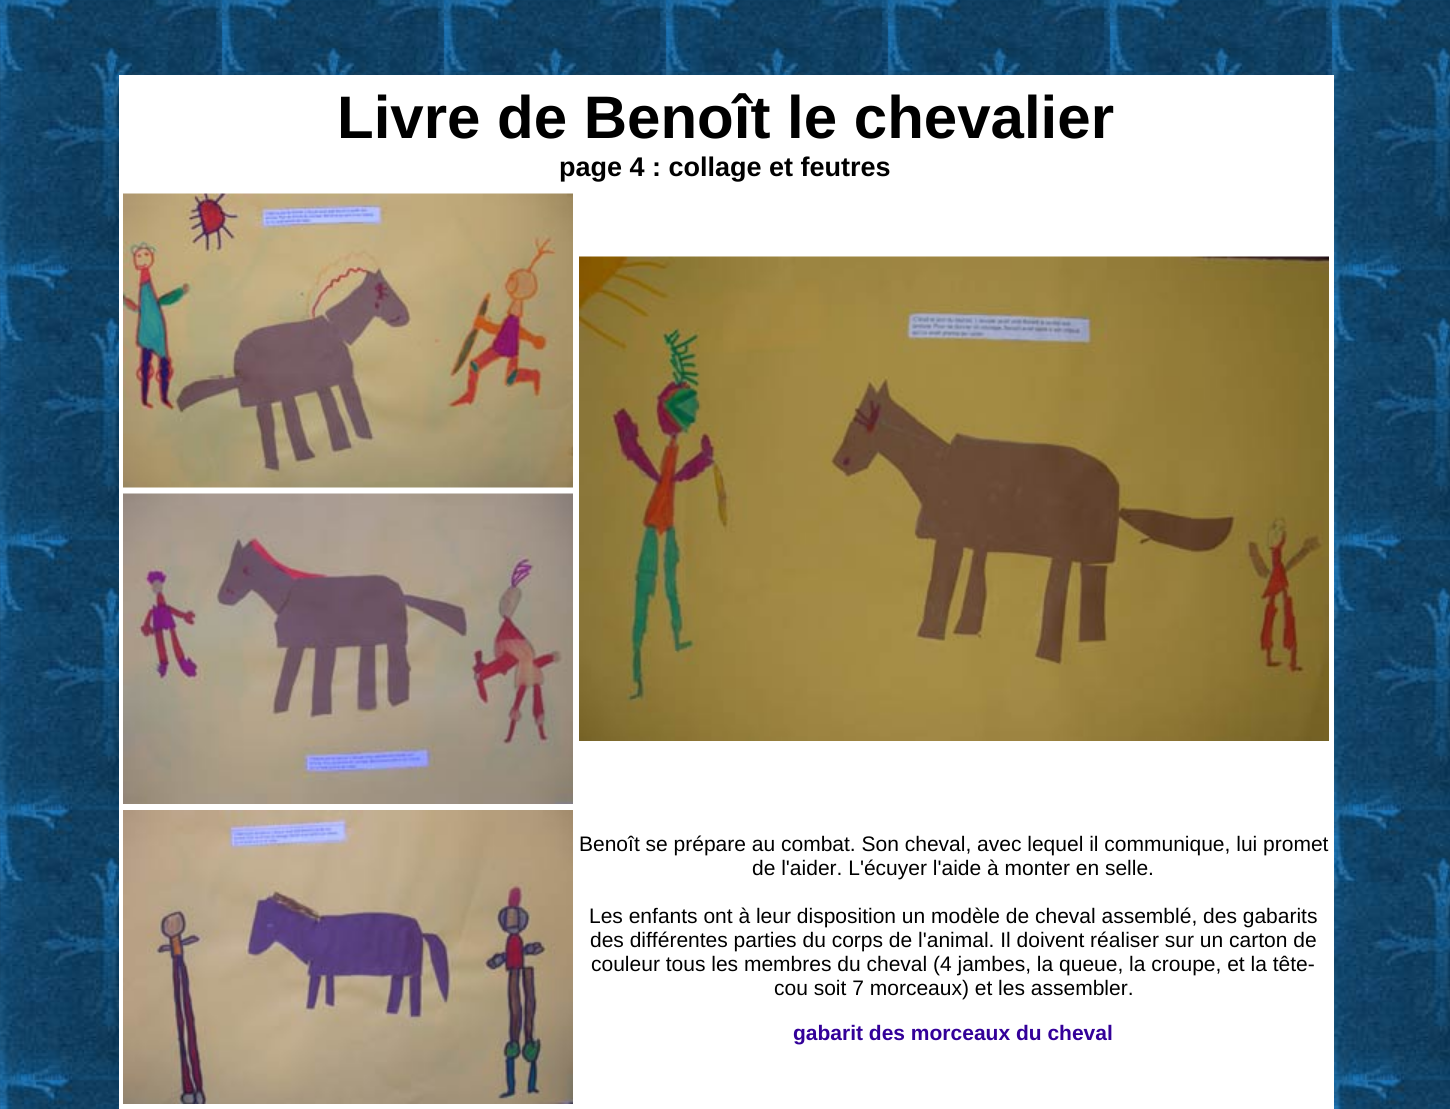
#include <cairo.h>
#include <math.h>
#include <stddef.h>


static void rgb(cairo_t *cr, int r, int g, int b)
{
	cairo_set_source_rgb(cr, r / 255.0, g / 255.0, b / 255.0);
}

static void face(cairo_t *cr, const char *family, double size, int italic, int bold)
{
	cairo_select_font_face(cr, family, italic ? CAIRO_FONT_SLANT_ITALIC : CAIRO_FONT_SLANT_NORMAL,
		bold ? CAIRO_FONT_WEIGHT_BOLD : CAIRO_FONT_WEIGHT_NORMAL);
	cairo_set_font_size(cr, size);
}

static void label(cairo_t *cr, double x, double y, const char *s)
{
	cairo_move_to(cr, x, y);
	cairo_show_text(cr, s);
}

static void rect(cairo_t *cr, double x, double y, double w, double h)
{
	cairo_rectangle(cr, x, y, w, h);
	cairo_fill(cr);
}

static void image(cairo_t *cr, const char *path, double x, double y, double w, double h)
{
	cairo_surface_t *image = cairo_image_surface_create_from_png(path);
	cairo_save(cr);
	cairo_set_source_surface(cr, image, x, y);
	cairo_rectangle(cr, x, y, w, h);
	cairo_fill(cr);
	cairo_restore(cr);
	cairo_surface_destroy(image);
}

static void draw(cairo_t *cr) {
	rgb(cr, 255, 255, 255);
	cairo_paint(cr);
	image(cr, "image0.png", 0, 0, 1450, 1109);
	rgb(cr, 255, 255, 255);
	rect(cr, 119, 75, 1215, 1034);
	face(cr, "Liberation Sans", 60, 0, 1);
	rgb(cr, 0, 0, 0);
	label(cr, 337, 138, "Livre de Benoît le chevalier");
	face(cr, "Liberation Sans", 27, 0, 1);
	label(cr, 559, 176, "page 4 : collage et feutres");
	image(cr, "image1.png", 123, 193, 450, 295);
	image(cr, "image2.png", 579, 256, 750, 485);
	image(cr, "image3.png", 123, 493, 450, 311);
	image(cr, "image4.png", 123, 810, 450, 294);
	face(cr, "Liberation Sans", 21, 0, 0);
	label(cr, 579, 851, "Benoît se prépare au combat. Son cheval, avec lequel il communique, lui promet");
	label(cr, 752, 875, "de l'aider. L'écuyer l'aide à monter en selle.");
	label(cr, 589, 923, "Les enfants ont à leur disposition un modèle de cheval assemblé, des gabarits");
	label(cr, 590, 947, "des différentes parties du corps de l'animal. Il doivent réaliser sur un carton de");
	label(cr, 591, 971, "couleur tous les membres du cheval (4 jambes, la queue, la croupe, et la tête-");
	label(cr, 774, 995, "cou soit 7 morceaux) et les assembler.");
	face(cr, "Liberation Sans", 21, 0, 1);
	rgb(cr, 51, 0, 153);
	label(cr, 793, 1040, "gabarit des morceaux du cheval");
}

int main(void) {
	cairo_surface_t *surface = cairo_image_surface_create(CAIRO_FORMAT_RGB24, 1450, 1109);
	cairo_t *cr = cairo_create(surface);
	cairo_font_options_t *options = cairo_font_options_create();
	cairo_font_options_set_hint_metrics(options, CAIRO_HINT_METRICS_OFF);
	cairo_font_options_set_hint_style(options, CAIRO_HINT_STYLE_NONE);
	cairo_set_font_options(cr, options);
	cairo_set_miter_limit(cr, 4);
	draw(cr);
	cairo_surface_write_to_png(surface, "render.png");
	cairo_font_options_destroy(options);
	cairo_destroy(cr);
	cairo_surface_destroy(surface);
	return 0;
}
